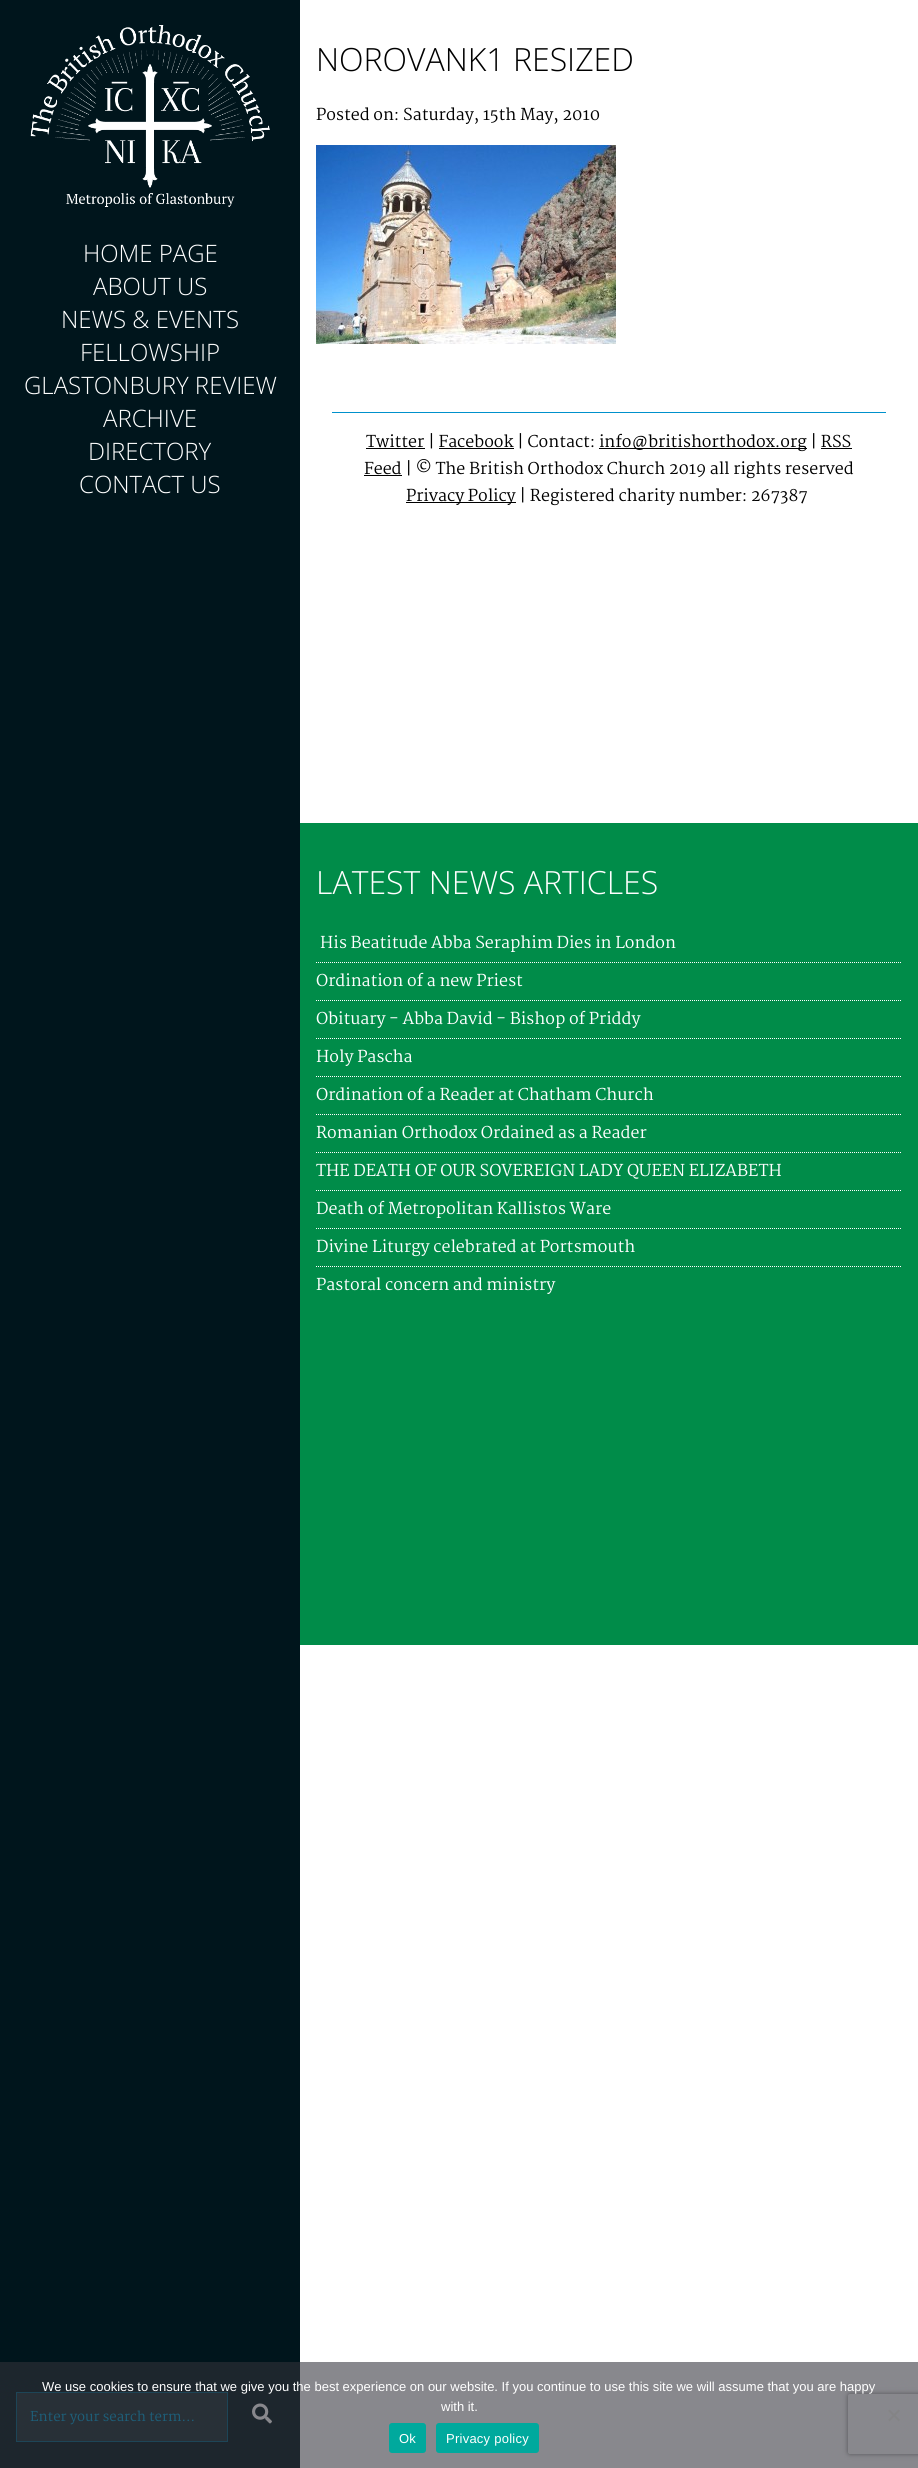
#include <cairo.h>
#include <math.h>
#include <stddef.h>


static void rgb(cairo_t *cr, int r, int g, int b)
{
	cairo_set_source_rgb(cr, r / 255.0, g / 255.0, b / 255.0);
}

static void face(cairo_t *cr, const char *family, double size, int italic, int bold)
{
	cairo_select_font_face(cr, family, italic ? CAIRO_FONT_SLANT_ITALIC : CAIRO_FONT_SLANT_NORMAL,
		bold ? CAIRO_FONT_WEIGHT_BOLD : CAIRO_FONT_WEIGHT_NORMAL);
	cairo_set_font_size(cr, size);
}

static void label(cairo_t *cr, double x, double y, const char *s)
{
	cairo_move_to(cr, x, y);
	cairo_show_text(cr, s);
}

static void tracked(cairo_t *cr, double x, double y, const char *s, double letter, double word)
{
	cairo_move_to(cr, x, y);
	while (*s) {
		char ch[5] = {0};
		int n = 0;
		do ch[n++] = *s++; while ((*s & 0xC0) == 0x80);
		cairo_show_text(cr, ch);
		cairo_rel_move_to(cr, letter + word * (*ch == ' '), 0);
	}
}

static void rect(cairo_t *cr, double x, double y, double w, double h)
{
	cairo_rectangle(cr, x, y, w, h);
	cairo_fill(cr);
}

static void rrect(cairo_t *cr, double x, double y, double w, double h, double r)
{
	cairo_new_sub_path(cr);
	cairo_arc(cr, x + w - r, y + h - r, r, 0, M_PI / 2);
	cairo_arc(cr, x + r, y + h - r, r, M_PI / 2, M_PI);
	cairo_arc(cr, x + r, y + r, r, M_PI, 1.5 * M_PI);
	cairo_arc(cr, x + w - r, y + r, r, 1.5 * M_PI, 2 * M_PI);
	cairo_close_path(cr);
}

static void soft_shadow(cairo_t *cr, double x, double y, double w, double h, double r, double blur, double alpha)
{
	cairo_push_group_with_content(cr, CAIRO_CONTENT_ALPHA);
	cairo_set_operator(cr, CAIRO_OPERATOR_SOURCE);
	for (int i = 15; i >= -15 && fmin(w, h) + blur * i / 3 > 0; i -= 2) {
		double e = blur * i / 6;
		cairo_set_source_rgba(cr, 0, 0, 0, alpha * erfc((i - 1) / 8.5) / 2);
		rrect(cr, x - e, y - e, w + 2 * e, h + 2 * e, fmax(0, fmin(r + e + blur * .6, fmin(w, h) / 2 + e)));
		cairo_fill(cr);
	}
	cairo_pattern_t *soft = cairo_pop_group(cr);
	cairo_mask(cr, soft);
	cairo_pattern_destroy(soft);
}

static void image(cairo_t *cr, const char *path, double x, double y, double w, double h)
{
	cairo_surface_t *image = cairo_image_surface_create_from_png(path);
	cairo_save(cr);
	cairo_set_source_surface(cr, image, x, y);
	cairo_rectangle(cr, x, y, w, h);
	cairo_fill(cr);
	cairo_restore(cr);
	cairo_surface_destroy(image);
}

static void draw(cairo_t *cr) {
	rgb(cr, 255, 255, 255);
	cairo_paint(cr);
	rgb(cr, 136, 136, 141);
	rect(cr, 300, 2362, 618, 106);
	rgb(cr, 0, 21, 28);
	rect(cr, 0, 0, 300, 2362);
	rgb(cr, 29, 38, 45);
	rect(cr, 0, 2362, 300, 106);
	image(cr, "image0.png", 30, 25, 240, 182);
	face(cr, "Open Sans Light", 24, 0, 0);
	rgb(cr, 255, 255, 255);
	label(cr, 83, 262, "HOME PAGE");
	label(cr, 93, 295, "ABOUT US");
	label(cr, 61, 328, "NEWS & EVENTS");
	label(cr, 80, 361, "FELLOWSHIP");
	label(cr, 24, 394, "GLASTONBURY REVIEW");
	label(cr, 103, 427, "ARCHIVE");
	label(cr, 88, 460, "DIRECTORY");
	label(cr, 79, 493, "CONTACT US");
	rgb(cr, 40, 48, 55);
	cairo_rectangle(cr, 16.5, 2392.5, 211, 49);
	cairo_fill_preserve(cr);
	rgb(cr, 29, 69, 87);
	cairo_set_line_width(cr, 1);
	cairo_stroke(cr);
	face(cr, "Martel", 13.25, 0, 0);
	rgb(cr, 29, 95, 122);
	label(cr, 30, 2421, "Enter your search term...");
	image(cr, "image1.png", 252, 2403, 20, 21);
	face(cr, "Open Sans Light", 32, 0, 0);
	rgb(cr, 0, 0, 0);
	label(cr, 316, 71, "NOROVANK1 RESIZED");
	face(cr, "Martel", 16, 0, 0);
	label(cr, 316, 120, "Posted on: Saturday, 15th May, 2010");
	image(cr, "image2.png", 316, 145, 300, 199);
	rgb(cr, 0, 145, 204);
	rect(cr, 332, 412, 554, 1);
	rgb(cr, 0, 0, 0);
	rect(cr, 366, 448, 59, 1);
	label(cr, 366, 447, "Twitter | Facebook | Contact:");
	rect(cr, 599, 448, 208, 1);
	label(cr, 599, 447, "info@britishorthodox.org | RSS");
	rect(cr, 439, 448, 75, 1);
	rect(cr, 364, 475, 38, 1);
	label(cr, 364, 474, "Feed | © The British Orthodox Church 2019 all rights reserved");
	rect(cr, 821, 448, 31, 1);
	rect(cr, 406, 502, 110, 1);
	label(cr, 406, 501, "Privacy Policy | Registered charity number: 267387");
	rgb(cr, 0, 140, 73);
	rect(cr, 300, 823, 618, 822);
	face(cr, "Open Sans Light", 32, 0, 0);
	rgb(cr, 255, 255, 255);
	label(cr, 316, 894, "LATEST NEWS ARTICLES");
	cairo_new_path(cr);
	cairo_move_to(cr, 316, 962.5);
	cairo_line_to(cr, 902, 962.5);
	cairo_set_dash(cr, (double[]){1, 1}, 2, 0);
	cairo_stroke(cr);
	face(cr, "Martel", 16, 0, 0);
	label(cr, 320, 948, "His Beatitude Abba Seraphim Dies in London");
	cairo_new_path(cr);
	cairo_move_to(cr, 316, 1000.5);
	cairo_line_to(cr, 902, 1000.5);
	cairo_stroke(cr);
	label(cr, 316, 986, "Ordination of a new Priest");
	cairo_new_path(cr);
	cairo_move_to(cr, 316, 1038.5);
	cairo_line_to(cr, 902, 1038.5);
	cairo_stroke(cr);
	label(cr, 316, 1024, "Obituary - Abba David - Bishop of Priddy");
	cairo_new_path(cr);
	cairo_move_to(cr, 316, 1076.5);
	cairo_line_to(cr, 902, 1076.5);
	cairo_stroke(cr);
	label(cr, 316, 1062, "Holy Pascha");
	cairo_new_path(cr);
	cairo_move_to(cr, 316, 1114.5);
	cairo_line_to(cr, 902, 1114.5);
	cairo_stroke(cr);
	label(cr, 316, 1100, "Ordination of a Reader at Chatham Church");
	cairo_new_path(cr);
	cairo_move_to(cr, 316, 1152.5);
	cairo_line_to(cr, 902, 1152.5);
	cairo_stroke(cr);
	label(cr, 316, 1138, "Romanian Orthodox Ordained as a Reader");
	cairo_new_path(cr);
	cairo_move_to(cr, 316, 1190.5);
	cairo_line_to(cr, 902, 1190.5);
	cairo_stroke(cr);
	label(cr, 316, 1176, "THE DEATH OF OUR SOVEREIGN LADY QUEEN ELIZABETH");
	cairo_new_path(cr);
	cairo_move_to(cr, 316, 1228.5);
	cairo_line_to(cr, 902, 1228.5);
	cairo_stroke(cr);
	label(cr, 316, 1214, "Death of Metropolitan Kallistos Ware");
	cairo_new_path(cr);
	cairo_move_to(cr, 316, 1266.5);
	cairo_line_to(cr, 902, 1266.5);
	cairo_stroke(cr);
	label(cr, 316, 1252, "Divine Liturgy celebrated at Portsmouth");
	label(cr, 316, 1290, "Pastoral concern and ministry");
	cairo_save(cr);
	cairo_set_fill_rule(cr, CAIRO_FILL_RULE_EVEN_ODD);
	cairo_new_path(cr);
	cairo_move_to(cr, 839, 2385);
	cairo_line_to(cr, 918, 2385);
	cairo_line_to(cr, 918, 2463);
	cairo_line_to(cr, 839, 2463);
	cairo_close_path(cr);
	cairo_move_to(cr, 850, 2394);
	cairo_line_to(cr, 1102, 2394);
	cairo_curve_to(cr, 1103, 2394, 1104, 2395, 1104, 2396);
	cairo_line_to(cr, 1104, 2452);
	cairo_curve_to(cr, 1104, 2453, 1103, 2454, 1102, 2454);
	cairo_line_to(cr, 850, 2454);
	cairo_curve_to(cr, 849, 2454, 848, 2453, 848, 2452);
	cairo_line_to(cr, 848, 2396);
	cairo_curve_to(cr, 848, 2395, 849, 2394, 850, 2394);
	cairo_close_path(cr);
	cairo_clip(cr);
	rgb(cr, 83, 83, 87);
	soft_shadow(cr, 848, 2394, 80, 60, 2, 2.5, 1);
	cairo_restore(cr);
	face(cr, "Liberation Sans", 13, 0, 0);
	label(cr, 42, 2391, "We use cookies to ensure that we give you the best experience on our website. If you continue to use this site we will assume that you are happy");
	label(cr, 441, 2411, "with it.");
	rgb(cr, 132, 132, 134);
	cairo_new_path(cr);
	cairo_move_to(cr, 898.5, 2409.5);
	cairo_line_to(cr, 900, 2411);
	cairo_line_to(cr, 889.5, 2421.5);
	cairo_line_to(cr, 888, 2420);
	cairo_close_path(cr);
	cairo_fill(cr);
	cairo_new_path(cr);
	cairo_move_to(cr, 888, 2411);
	cairo_line_to(cr, 889.5, 2409.5);
	cairo_line_to(cr, 900, 2420);
	cairo_line_to(cr, 898.5, 2421.5);
	cairo_close_path(cr);
	cairo_fill(cr);
	rgb(cr, 0, 169, 157);
	rrect(cr, 389, 2423, 37, 30, 3);
	cairo_fill(cr);
	rgb(cr, 255, 255, 255);
	tracked(cr, 399, 2443, "Ok", 0.25, 0);
	rgb(cr, 0, 169, 157);
	rrect(cr, 436, 2423, 103, 30, 3);
	cairo_fill(cr);
	rgb(cr, 255, 255, 255);
	tracked(cr, 446, 2443, "Privacy policy", 0.25, 0);
}

int main(void) {
	cairo_surface_t *surface = cairo_image_surface_create(CAIRO_FORMAT_RGB24, 918, 2468);
	cairo_t *cr = cairo_create(surface);
	cairo_font_options_t *options = cairo_font_options_create();
	cairo_font_options_set_hint_metrics(options, CAIRO_HINT_METRICS_OFF);
	cairo_font_options_set_hint_style(options, CAIRO_HINT_STYLE_NONE);
	cairo_set_font_options(cr, options);
	cairo_set_miter_limit(cr, 4);
	draw(cr);
	cairo_surface_write_to_png(surface, "render.png");
	cairo_font_options_destroy(options);
	cairo_destroy(cr);
	cairo_surface_destroy(surface);
	return 0;
}
